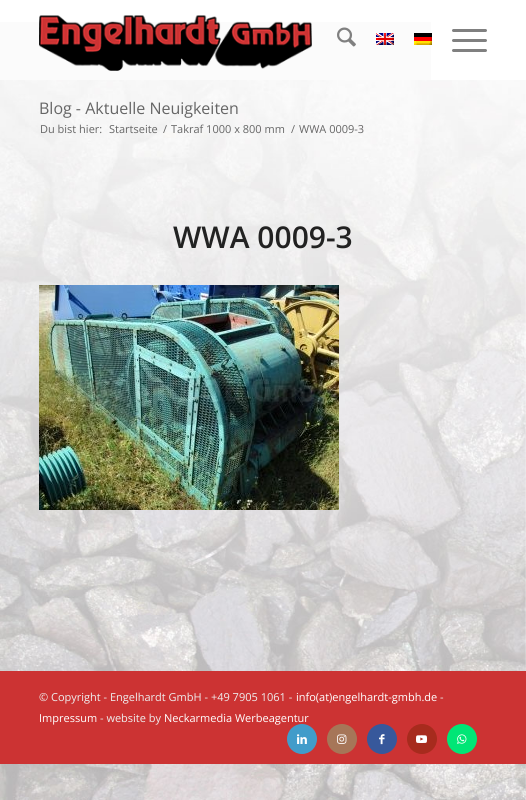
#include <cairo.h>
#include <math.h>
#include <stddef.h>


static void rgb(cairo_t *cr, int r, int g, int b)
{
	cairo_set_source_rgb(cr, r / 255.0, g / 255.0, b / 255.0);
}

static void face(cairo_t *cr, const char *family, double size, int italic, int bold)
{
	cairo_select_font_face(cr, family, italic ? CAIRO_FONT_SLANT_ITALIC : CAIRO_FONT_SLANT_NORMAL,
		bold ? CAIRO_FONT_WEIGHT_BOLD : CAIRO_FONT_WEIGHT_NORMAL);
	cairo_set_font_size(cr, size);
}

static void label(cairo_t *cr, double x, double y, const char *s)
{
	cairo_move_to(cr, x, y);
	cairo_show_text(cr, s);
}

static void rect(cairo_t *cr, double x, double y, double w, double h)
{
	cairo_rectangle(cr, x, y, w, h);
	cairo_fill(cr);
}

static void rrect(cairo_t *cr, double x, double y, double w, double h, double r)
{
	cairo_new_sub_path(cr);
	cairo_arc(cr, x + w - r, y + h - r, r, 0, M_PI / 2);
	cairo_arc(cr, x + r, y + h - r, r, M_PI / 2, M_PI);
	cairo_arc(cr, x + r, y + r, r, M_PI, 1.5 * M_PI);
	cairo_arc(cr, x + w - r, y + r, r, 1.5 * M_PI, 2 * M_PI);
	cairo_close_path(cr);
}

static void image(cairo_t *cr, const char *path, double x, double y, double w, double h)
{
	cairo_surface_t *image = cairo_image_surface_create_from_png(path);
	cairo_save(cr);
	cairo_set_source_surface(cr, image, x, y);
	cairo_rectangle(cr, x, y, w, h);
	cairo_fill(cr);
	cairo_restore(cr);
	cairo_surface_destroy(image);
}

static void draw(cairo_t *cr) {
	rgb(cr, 255, 255, 255);
	cairo_paint(cr);
	image(cr, "image0.png", 0, 80, 526, 720);
	rgb(cr, 251, 251, 251);
	rect(cr, 0, 22, 431, 58);
	image(cr, "image1.png", 39, 15, 273, 56);
	image(cr, "image2.png", 337, 27, 19, 20);
	image(cr, "image3.png", 376, 33, 18, 12);
	image(cr, "image4.png", 414, 33, 18, 12);
	rgb(cr, 128, 128, 128);
	rrect(cr, 452, 39, 35, 3, 1.5);
	cairo_fill(cr);
	rrect(cr, 452, 29, 35, 3, 1.5);
	cairo_fill(cr);
	rrect(cr, 452, 49, 35, 3, 1.5);
	cairo_fill(cr);
	face(cr, "Open Sans", 16, 0, 0);
	rgb(cr, 102, 102, 102);
	label(cr, 39, 114, "Blog - Aktuelle Neuigkeiten");
	face(cr, "Open Sans", 11, 0, 0);
	label(cr, 40, 133, "Du bist hier:");
	label(cr, 109, 133, "Startseite");
	label(cr, 163, 133, "/");
	label(cr, 171, 133, "Takraf 1000 x 800 mm");
	label(cr, 291, 133, "/");
	label(cr, 299, 133, "WWA 0009-3");
	face(cr, "Open Sans SemiBold", 30, 0, 0);
	rgb(cr, 34, 34, 34);
	label(cr, 173, 248, "WWA 0009-3");
	image(cr, "image5.png", 39, 285, 300, 225);
	rgb(cr, 204, 51, 51);
	rect(cr, 0, 671, 526, 93);
	face(cr, "Open Sans", 11, 0, 0);
	rgb(cr, 238, 238, 238);
	label(cr, 39, 701, "© Copyright - Engelhardt GmbH - +49 7905 1061 -");
	rgb(cr, 255, 255, 255);
	label(cr, 296, 701, "info(at)engelhardt-gmbh.de");
	rgb(cr, 238, 238, 238);
	label(cr, 440, 701, "-");
	rgb(cr, 255, 255, 255);
	label(cr, 39, 722, "Impressum");
	rgb(cr, 238, 238, 238);
	label(cr, 100, 722, "- website by");
	rgb(cr, 255, 255, 255);
	label(cr, 164, 722, "Neckarmedia Werbeagentur");
	rgb(cr, 65, 156, 202);
	cairo_new_path(cr);
	cairo_arc(cr, 302, 739, 15, 0, 2 * M_PI);
	cairo_fill(cr);
	image(cr, "image6.png", 297, 734, 10, 10);
	rgb(cr, 166, 118, 88);
	cairo_arc(cr, 342, 739, 15, 0, 2 * M_PI);
	cairo_fill(cr);
	image(cr, "image7.png", 337, 734, 10, 10);
	rgb(cr, 55, 88, 155);
	cairo_arc(cr, 382, 739, 15, 0, 2 * M_PI);
	cairo_fill(cr);
	image(cr, "image8.png", 379, 734, 6, 11);
	rgb(cr, 167, 43, 29);
	cairo_arc(cr, 422, 739, 15, 0, 2 * M_PI);
	cairo_fill(cr);
	image(cr, "image9.png", 416, 735, 11, 8);
	rgb(cr, 0, 230, 118);
	cairo_arc(cr, 462, 739, 15, 0, 2 * M_PI);
	cairo_fill(cr);
	image(cr, "image10.png", 457, 734, 10, 10);
}

int main(void) {
	cairo_surface_t *surface = cairo_image_surface_create(CAIRO_FORMAT_RGB24, 526, 800);
	cairo_t *cr = cairo_create(surface);
	cairo_font_options_t *options = cairo_font_options_create();
	cairo_font_options_set_hint_metrics(options, CAIRO_HINT_METRICS_OFF);
	cairo_font_options_set_hint_style(options, CAIRO_HINT_STYLE_NONE);
	cairo_set_font_options(cr, options);
	cairo_set_miter_limit(cr, 4);
	draw(cr);
	cairo_surface_write_to_png(surface, "render.png");
	cairo_font_options_destroy(options);
	cairo_destroy(cr);
	cairo_surface_destroy(surface);
	return 0;
}
